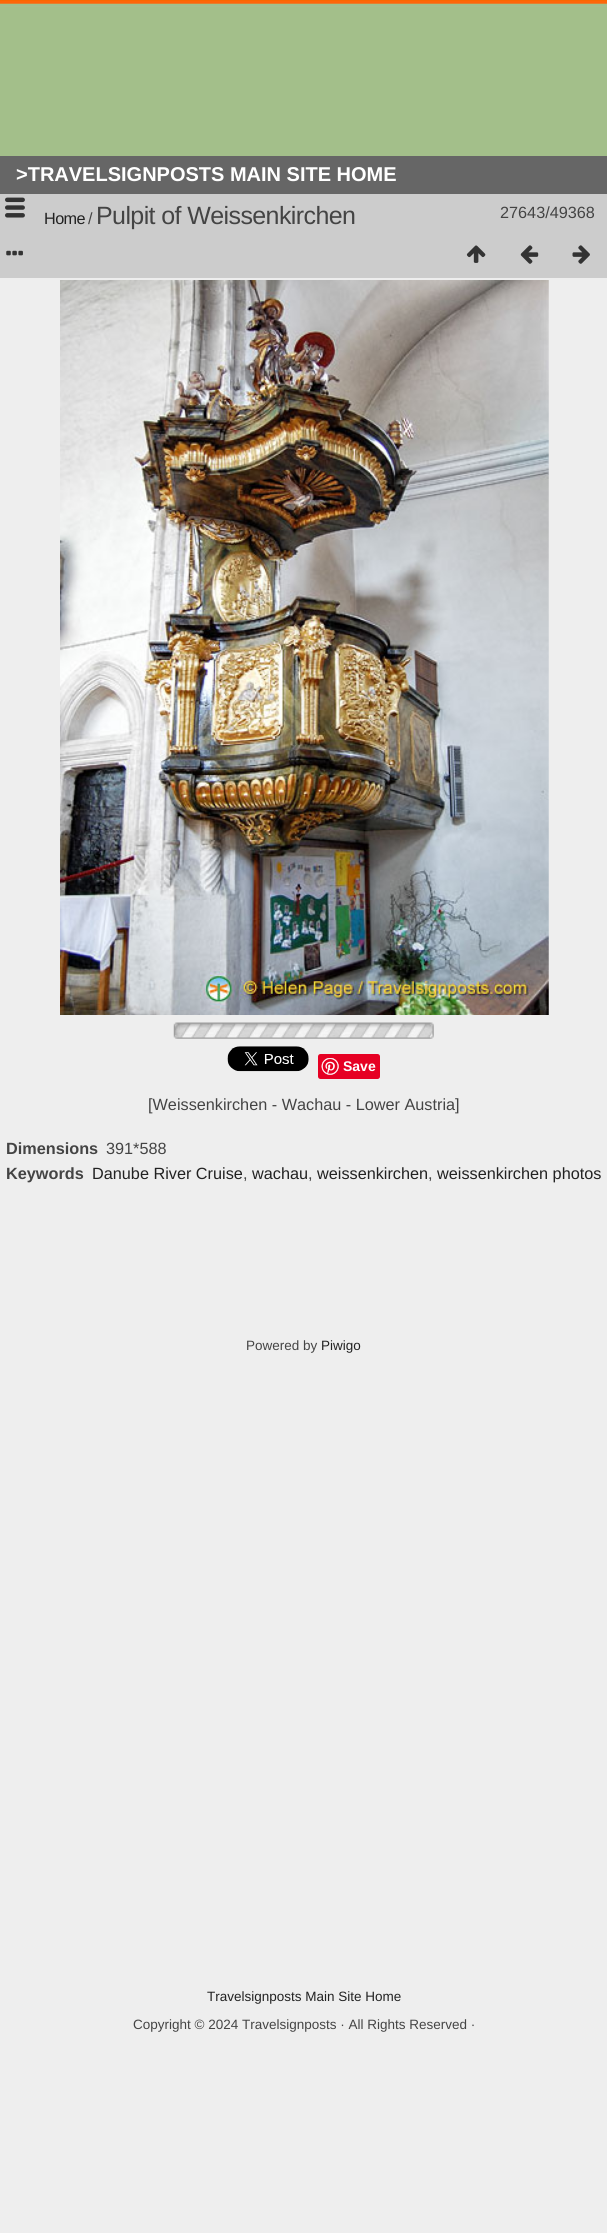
#include <cairo.h>
#include <math.h>
#include <stddef.h>


static void rgb(cairo_t *cr, int r, int g, int b)
{
	cairo_set_source_rgb(cr, r / 255.0, g / 255.0, b / 255.0);
}

static void face(cairo_t *cr, const char *family, double size, int italic, int bold)
{
	cairo_select_font_face(cr, family, italic ? CAIRO_FONT_SLANT_ITALIC : CAIRO_FONT_SLANT_NORMAL,
		bold ? CAIRO_FONT_WEIGHT_BOLD : CAIRO_FONT_WEIGHT_NORMAL);
	cairo_set_font_size(cr, size);
}

static void label(cairo_t *cr, double x, double y, const char *s)
{
	cairo_move_to(cr, x, y);
	cairo_show_text(cr, s);
}

static void tracked(cairo_t *cr, double x, double y, const char *s, double letter, double word)
{
	cairo_move_to(cr, x, y);
	while (*s) {
		char ch[5] = {0};
		int n = 0;
		do ch[n++] = *s++; while ((*s & 0xC0) == 0x80);
		cairo_show_text(cr, ch);
		cairo_rel_move_to(cr, letter + word * (*ch == ' '), 0);
	}
}

static void rect(cairo_t *cr, double x, double y, double w, double h)
{
	cairo_rectangle(cr, x, y, w, h);
	cairo_fill(cr);
}

static void rrect(cairo_t *cr, double x, double y, double w, double h, double r)
{
	cairo_new_sub_path(cr);
	cairo_arc(cr, x + w - r, y + h - r, r, 0, M_PI / 2);
	cairo_arc(cr, x + r, y + h - r, r, M_PI / 2, M_PI);
	cairo_arc(cr, x + r, y + r, r, M_PI, 1.5 * M_PI);
	cairo_arc(cr, x + w - r, y + r, r, 1.5 * M_PI, 2 * M_PI);
	cairo_close_path(cr);
}

static void image(cairo_t *cr, const char *path, double x, double y, double w, double h)
{
	cairo_surface_t *image = cairo_image_surface_create_from_png(path);
	cairo_save(cr);
	cairo_set_source_surface(cr, image, x, y);
	cairo_rectangle(cr, x, y, w, h);
	cairo_fill(cr);
	cairo_restore(cr);
	cairo_surface_destroy(image);
}

static void draw(cairo_t *cr) {
	rgb(cr, 238, 238, 238);
	cairo_paint(cr);
	rgb(cr, 163, 191, 138);
	rect(cr, 0, 7, 607, 149);
	image(cr, "image0.png", 0, 0, 607, 7);
	rgb(cr, 102, 102, 102);
	rect(cr, 0, 156, 607, 38);
	face(cr, "Liberation Sans", 20, 0, 1);
	rgb(cr, 255, 255, 255);
	label(cr, 16, 181, ">TRAVELSIGNPOSTS MAIN SITE HOME");
	rgb(cr, 204, 204, 204);
	rect(cr, 0, 194, 607, 84);
	image(cr, "image1.png", 5, 197, 20, 21);
	face(cr, "Liberation Sans", 16.25, 0, 0);
	rgb(cr, 34, 34, 34);
	tracked(cr, 44, 224, "Home", -0.6, 0);
	rgb(cr, 68, 68, 68);
	tracked(cr, 88, 224, "/", -0.6, 0);
	face(cr, "Liberation Sans", 25, 0, 0);
	tracked(cr, 96, 224, "Pulpit of Weissenkirchen", -0.6, 0);
	face(cr, "Liberation Sans", 16.25, 0, 0);
	label(cr, 500, 218, "27643/49368");
	image(cr, "image2.png", 6, 250, 17, 6);
	image(cr, "image3.png", 466, 245, 20, 18);
	image(cr, "image4.png", 520, 245, 19, 19);
	image(cr, "image5.png", 572, 245, 18, 19);
	image(cr, "image6.png", 60, 280, 489, 735);
	image(cr, "image7.png", 173, 1022, 261, 17);
	image(cr, "image8.png", 227, 1046, 82, 26);
	rgb(cr, 230, 0, 35);
	rrect(cr, 318, 1054, 62, 25, 2.5);
	cairo_fill(cr);
	image(cr, "image9.png", 321, 1058, 18, 17);
	face(cr, "Liberation Sans", 14, 0, 1);
	rgb(cr, 255, 255, 255);
	label(cr, 343, 1071, "Save");
	face(cr, "Liberation Sans", 16.25, 0, 0);
	rgb(cr, 68, 68, 68);
	label(cr, 148, 1110, "[Weissenkirchen - Wachau - Lower Austria]");
	face(cr, "Liberation Sans", 16.25, 0, 1);
	label(cr, 6, 1154, "Dimensions");
	face(cr, "Liberation Sans", 16.25, 0, 0);
	label(cr, 106, 1154, "391*588");
	face(cr, "Liberation Sans", 16.25, 0, 1);
	label(cr, 6, 1179, "Keywords");
	face(cr, "Liberation Sans", 16.25, 0, 0);
	rgb(cr, 34, 34, 34);
	label(cr, 92, 1179, "Danube River Cruise");
	rgb(cr, 68, 68, 68);
	label(cr, 243, 1179, ",");
	rgb(cr, 34, 34, 34);
	label(cr, 252, 1179, "wachau");
	rgb(cr, 68, 68, 68);
	label(cr, 308, 1179, ",");
	rgb(cr, 34, 34, 34);
	label(cr, 317, 1179, "weissenkirchen");
	rgb(cr, 68, 68, 68);
	label(cr, 428, 1179, ",");
	rgb(cr, 34, 34, 34);
	label(cr, 437, 1179, "weissenkirchen photos");
	face(cr, "Liberation Sans", 13.5, 0, 0);
	rgb(cr, 68, 68, 68);
	label(cr, 246, 1350, "Powered by");
	rgb(cr, 34, 34, 34);
	label(cr, 321, 1350, "Piwigo");
	label(cr, 207, 2001, "Travelsignposts Main Site Home");
	rgb(cr, 68, 68, 68);
	label(cr, 133, 2029, "Copyright © 2024 Travelsignposts · All Rights Reserved ·");
}

int main(void) {
	cairo_surface_t *surface = cairo_image_surface_create(CAIRO_FORMAT_RGB24, 607, 2233);
	cairo_t *cr = cairo_create(surface);
	cairo_font_options_t *options = cairo_font_options_create();
	cairo_font_options_set_hint_metrics(options, CAIRO_HINT_METRICS_OFF);
	cairo_font_options_set_hint_style(options, CAIRO_HINT_STYLE_NONE);
	cairo_set_font_options(cr, options);
	cairo_set_miter_limit(cr, 4);
	draw(cr);
	cairo_surface_write_to_png(surface, "render.png");
	cairo_font_options_destroy(options);
	cairo_destroy(cr);
	cairo_surface_destroy(surface);
	return 0;
}
